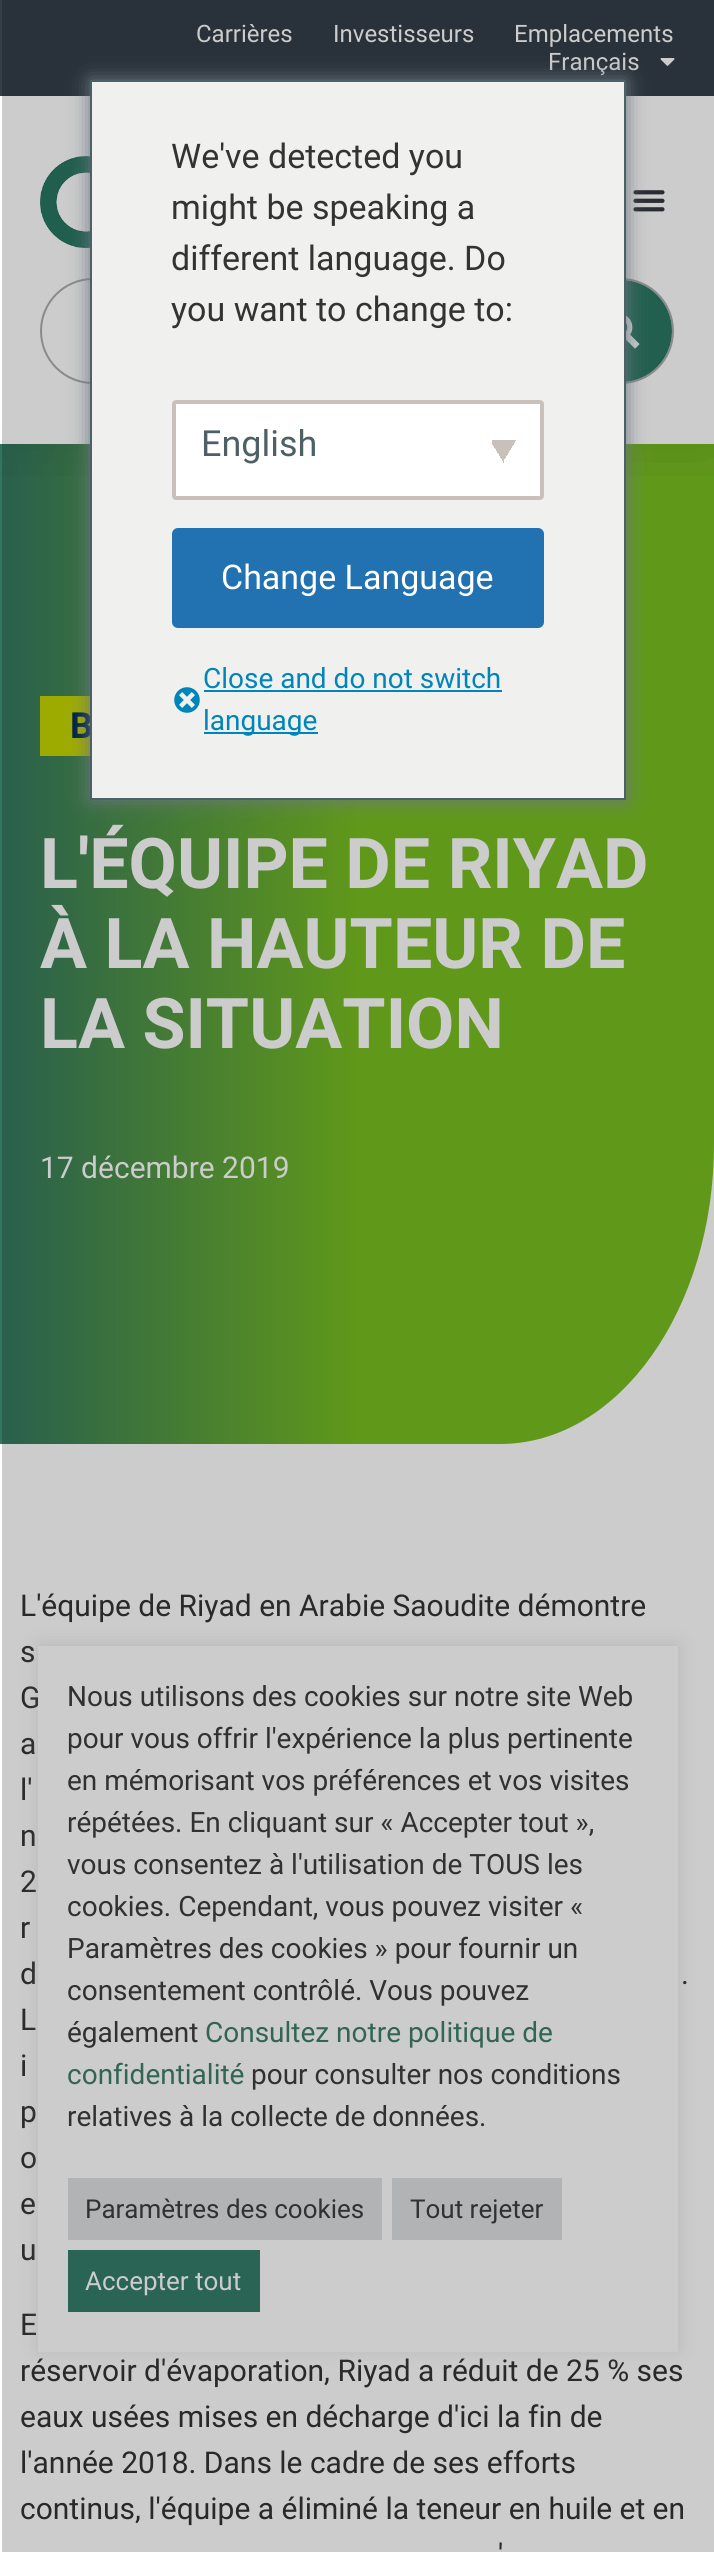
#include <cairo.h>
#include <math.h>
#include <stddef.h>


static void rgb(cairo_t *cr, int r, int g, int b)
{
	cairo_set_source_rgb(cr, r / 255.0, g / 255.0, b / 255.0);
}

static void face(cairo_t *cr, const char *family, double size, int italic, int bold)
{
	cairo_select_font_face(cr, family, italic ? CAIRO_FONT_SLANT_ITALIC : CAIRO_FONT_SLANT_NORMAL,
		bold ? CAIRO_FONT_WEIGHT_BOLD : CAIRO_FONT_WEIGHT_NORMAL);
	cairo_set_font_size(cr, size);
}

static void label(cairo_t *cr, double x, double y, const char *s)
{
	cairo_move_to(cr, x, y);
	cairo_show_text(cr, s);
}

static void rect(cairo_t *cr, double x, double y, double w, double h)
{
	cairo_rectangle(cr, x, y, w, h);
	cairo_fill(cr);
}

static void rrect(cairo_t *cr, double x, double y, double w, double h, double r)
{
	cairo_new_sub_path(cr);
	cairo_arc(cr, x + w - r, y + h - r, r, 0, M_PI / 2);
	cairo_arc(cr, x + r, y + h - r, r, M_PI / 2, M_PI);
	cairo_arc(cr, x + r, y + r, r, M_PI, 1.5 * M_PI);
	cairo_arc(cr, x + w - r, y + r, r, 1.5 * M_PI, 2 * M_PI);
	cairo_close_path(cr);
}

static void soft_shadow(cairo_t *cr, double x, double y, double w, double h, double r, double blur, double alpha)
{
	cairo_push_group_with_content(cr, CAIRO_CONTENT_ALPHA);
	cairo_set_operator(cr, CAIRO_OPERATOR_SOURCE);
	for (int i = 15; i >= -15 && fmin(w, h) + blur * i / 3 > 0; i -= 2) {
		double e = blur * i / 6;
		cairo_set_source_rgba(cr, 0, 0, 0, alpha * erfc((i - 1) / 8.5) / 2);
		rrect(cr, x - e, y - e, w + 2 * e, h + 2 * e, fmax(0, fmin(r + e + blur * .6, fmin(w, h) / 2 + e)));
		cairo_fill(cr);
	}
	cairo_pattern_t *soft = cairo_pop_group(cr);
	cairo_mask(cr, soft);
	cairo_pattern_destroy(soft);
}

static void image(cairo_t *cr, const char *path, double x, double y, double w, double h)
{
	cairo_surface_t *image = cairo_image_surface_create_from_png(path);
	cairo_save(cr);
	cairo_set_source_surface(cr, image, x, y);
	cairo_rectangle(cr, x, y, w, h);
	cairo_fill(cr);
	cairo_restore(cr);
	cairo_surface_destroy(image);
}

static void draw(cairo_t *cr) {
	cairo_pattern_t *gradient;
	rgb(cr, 255, 255, 255);
	cairo_paint(cr);
	gradient = cairo_pattern_create_linear(0, 944, 714, 944);
	cairo_pattern_add_color_stop_rgba(gradient, 0, 0.2, 0.467, 0.38, 1);
	cairo_pattern_add_color_stop_rgba(gradient, 0.5, 0.471, 0.745, 0.129, 1);
	cairo_set_source(cr, gradient);
	cairo_pattern_destroy(gradient);
	cairo_new_path(cr);
	cairo_move_to(cr, 0, 444);
	cairo_line_to(cr, 714, 444);
	cairo_line_to(cr, 714, 1144);
	cairo_curve_to(cr, 714, 1310, 618, 1444, 500, 1444);
	cairo_line_to(cr, 0, 1444);
	cairo_close_path(cr);
	cairo_fill(cr);
	cairo_save(cr);
	cairo_rectangle(cr, 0, 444, 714, 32);
	cairo_clip(cr);
	rgb(cr, 0, 0, 0);
	soft_shadow(cr, 0, 96, 714, 348, 0, 38, 0.1);
	cairo_restore(cr);
	image(cr, "image0.png", 40, 156, 50, 92);
	image(cr, "image1.png", 633, 190, 32, 22);
	rrect(cr, 41, 279, 632, 104, 52);
	rgb(cr, 173, 173, 173);
	cairo_stroke(cr);
	cairo_save(cr);
	rrect(cr, 42, 280, 630, 102, 51);
	cairo_clip(cr);
	rgb(cr, 42, 119, 99);
	rrect(cr, 566, 278, 110, 106, 53);
	cairo_fill(cr);
	cairo_restore(cr);
	image(cr, "image2.png", 626, 315, 14, 34);
	rgb(cr, 51, 63, 72);
	rect(cr, 0, 0, 714, 96);
	face(cr, "Roboto", 24, 0, 0);
	rgb(cr, 255, 255, 255);
	label(cr, 196, 42, "Carrières");
	label(cr, 333, 42, "Investisseurs");
	label(cr, 514, 42, "Emplacements");
	label(cr, 548, 70, "Français");
	image(cr, "image3.png", 660, 58, 15, 8);
	rgb(cr, 196, 214, 0);
	rect(cr, 40, 696, 50, 60);
	face(cr, "Roboto", 36, 0, 1);
	rgb(cr, 0, 40, 85);
	label(cr, 70, 738, "B");
	face(cr, "Roboto", 70, 0, 1);
	rgb(cr, 255, 255, 255);
	label(cr, 40, 888, "L'ÉQUIPE DE RIYAD");
	label(cr, 40, 968, "À LA HAUTEUR DE");
	label(cr, 40, 1048, "LA SITUATION");
	face(cr, "Roboto", 30, 0, 0);
	label(cr, 40, 1178, "17 décembre 2019");
	rgb(cr, 51, 51, 51);
	label(cr, 20, 1616, "L'équipe de Riyad en Arabie Saoudite démontre");
	label(cr, 20, 1662, "s");
	label(cr, 20, 1708, "G");
	label(cr, 20, 1754, "a");
	label(cr, 20, 1800, "l'");
	label(cr, 20, 1846, "n");
	label(cr, 20, 1892, "2");
	label(cr, 20, 1938, "r");
	label(cr, 20, 1984, "d");
	label(cr, 681, 1984, ".");
	label(cr, 20, 2030, "L");
	label(cr, 20, 2076, "i");
	label(cr, 20, 2122, "p");
	label(cr, 20, 2168, "o");
	label(cr, 20, 2214, "e");
	label(cr, 20, 2260, "u");
	label(cr, 20, 2335, "E");
	label(cr, 20, 2381, "réservoir d'évaporation, Riyad a réduit de 25 % ses");
	label(cr, 20, 2427, "eaux usées mises en décharge d'ici la fin de");
	label(cr, 20, 2473, "l'année 2018. Dans le cadre de ses efforts");
	label(cr, 20, 2519, "continus, l'équipe a éliminé la teneur en huile et en");
	label(cr, 498, 2565, "'");
	cairo_save(cr);
	cairo_set_fill_rule(cr, CAIRO_FILL_RULE_EVEN_ODD);
	cairo_new_path(cr);
	cairo_move_to(cr, 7, 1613);
	cairo_line_to(cr, 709, 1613);
	cairo_line_to(cr, 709, 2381);
	cairo_line_to(cr, 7, 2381);
	cairo_close_path(cr);
	cairo_move_to(cr, 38, 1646);
	cairo_line_to(cr, 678, 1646);
	cairo_line_to(cr, 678, 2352);
	cairo_line_to(cr, 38, 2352);
	cairo_close_path(cr);
	cairo_clip(cr);
	rgb(cr, 172, 171, 171);
	soft_shadow(cr, 38, 1644, 640, 706, 0, 10, 0.28);
	cairo_restore(cr);
	cairo_set_source_rgba(cr, 1, 1, 1, 0.95);
	rect(cr, 38, 1692, 1, 14);
	face(cr, "Roboto", 28, 0, 0);
	rgb(cr, 61, 61, 61);
	label(cr, 67, 1706, "Nous utilisons des cookies sur notre site Web");
	label(cr, 67, 1748, "pour vous offrir l'expérience la plus pertinente");
	label(cr, 67, 1790, "en mémorisant vos préférences et vos visites");
	label(cr, 67, 1832, "répétées. En cliquant sur « Accepter tout »,");
	label(cr, 67, 1874, "vous consentez à l'utilisation de TOUS les");
	label(cr, 67, 1916, "cookies. Cependant, vous pouvez visiter «");
	label(cr, 67, 1958, "Paramètres des cookies » pour fournir un");
	label(cr, 67, 2000, "consentement contrôlé. Vous pouvez");
	label(cr, 67, 2042, "également");
	rgb(cr, 61, 126, 105);
	label(cr, 205, 2042, "Consultez notre politique de");
	label(cr, 67, 2084, "confidentialité");
	rgb(cr, 61, 61, 61);
	label(cr, 251, 2084, "pour consulter nos conditions");
	label(cr, 67, 2126, "relatives à la collecte de données.");
	cairo_set_source_rgba(cr, 0.871, 0.875, 0.878, 0.95);
	rect(cr, 68, 2178, 314, 62);
	face(cr, "Roboto", 26, 0, 0);
	rgb(cr, 61, 61, 61);
	label(cr, 85, 2218, "Paramètres des cookies");
	cairo_set_source_rgba(cr, 0.871, 0.875, 0.878, 0.95);
	rect(cr, 392, 2178, 170, 62);
	rgb(cr, 61, 61, 61);
	label(cr, 410, 2218, "Tout rejeter");
	cairo_set_source_rgba(cr, 0.165, 0.467, 0.388, 0.95);
	rect(cr, 68, 2250, 192, 62);
	rgb(cr, 255, 255, 255);
	label(cr, 85, 2290, "Accepter tout");
	cairo_set_source_rgba(cr, 0, 0, 0, 0.2);
	rect(cr, 2, 0, 712, 2552);
	rgb(cr, 108, 119, 129);
	soft_shadow(cr, 90, 80, 536, 720, 0, 10, 1);
	rgb(cr, 240, 240, 238);
	cairo_rectangle(cr, 91, 81, 534, 718);
	cairo_fill_preserve(cr);
	rgb(cr, 76, 96, 102);
	cairo_stroke(cr);
	face(cr, "Roboto", 34, 0, 0);
	rgb(cr, 51, 51, 51);
	label(cr, 171, 168, "We've detected you");
	label(cr, 171, 219, "might be speaking a");
	label(cr, 171, 270, "different language. Do");
	label(cr, 171, 321, "you want to change to:");
	rgb(cr, 255, 255, 255);
	rrect(cr, 172, 400, 372, 100, 4);
	cairo_fill(cr);
	gradient = cairo_pattern_create_linear(499, 446, 519, 458);
	cairo_pattern_add_color_stop_rgba(gradient, 0.5, 0.788, 0.753, 0.733, 1);
	cairo_pattern_add_color_stop_rgba(gradient, 0.5, 1, 1, 1, 1);
	cairo_set_source(cr, gradient);
	cairo_pattern_destroy(gradient);
	rect(cr, 504, 440, 12, 19);
	gradient = cairo_pattern_create_linear(487, 458, 507, 446);
	cairo_pattern_add_color_stop_rgba(gradient, 0.5, 1, 1, 1, 1);
	cairo_pattern_add_color_stop_rgba(gradient, 0.5, 0.788, 0.753, 0.733, 1);
	cairo_set_source(cr, gradient);
	cairo_pattern_destroy(gradient);
	rect(cr, 492, 440, 12, 23);
	rrect(cr, 174, 402, 368, 96, 2);
	rgb(cr, 201, 192, 187);
	cairo_set_line_width(cr, 4);
	cairo_stroke(cr);
	face(cr, "Roboto", 36, 0, 0);
	rgb(cr, 76, 96, 102);
	label(cr, 201, 456, "English");
	rgb(cr, 34, 113, 177);
	rrect(cr, 173, 529, 370, 98, 5);
	cairo_fill_preserve(cr);
	cairo_set_line_width(cr, 2);
	cairo_stroke(cr);
	face(cr, "Roboto", 34, 0, 0);
	rgb(cr, 255, 255, 255);
	label(cr, 221, 589, "Change Language");
	image(cr, "image4.png", 174, 687, 26, 26);
	face(cr, "Roboto", 28, 0, 0);
	rgb(cr, 0, 133, 186);
	label(cr, 203, 688, "Close and do not switch");
	rect(cr, 204, 690, 298, 2);
	rect(cr, 204, 732, 114, 2);
	label(cr, 203, 730, "language");
}

int main(void) {
	cairo_surface_t *surface = cairo_image_surface_create(CAIRO_FORMAT_RGB24, 714, 2552);
	cairo_t *cr = cairo_create(surface);
	cairo_font_options_t *options = cairo_font_options_create();
	cairo_font_options_set_hint_metrics(options, CAIRO_HINT_METRICS_OFF);
	cairo_font_options_set_hint_style(options, CAIRO_HINT_STYLE_NONE);
	cairo_set_font_options(cr, options);
	cairo_set_miter_limit(cr, 4);
	draw(cr);
	cairo_surface_write_to_png(surface, "render.png");
	cairo_font_options_destroy(options);
	cairo_destroy(cr);
	cairo_surface_destroy(surface);
	return 0;
}
